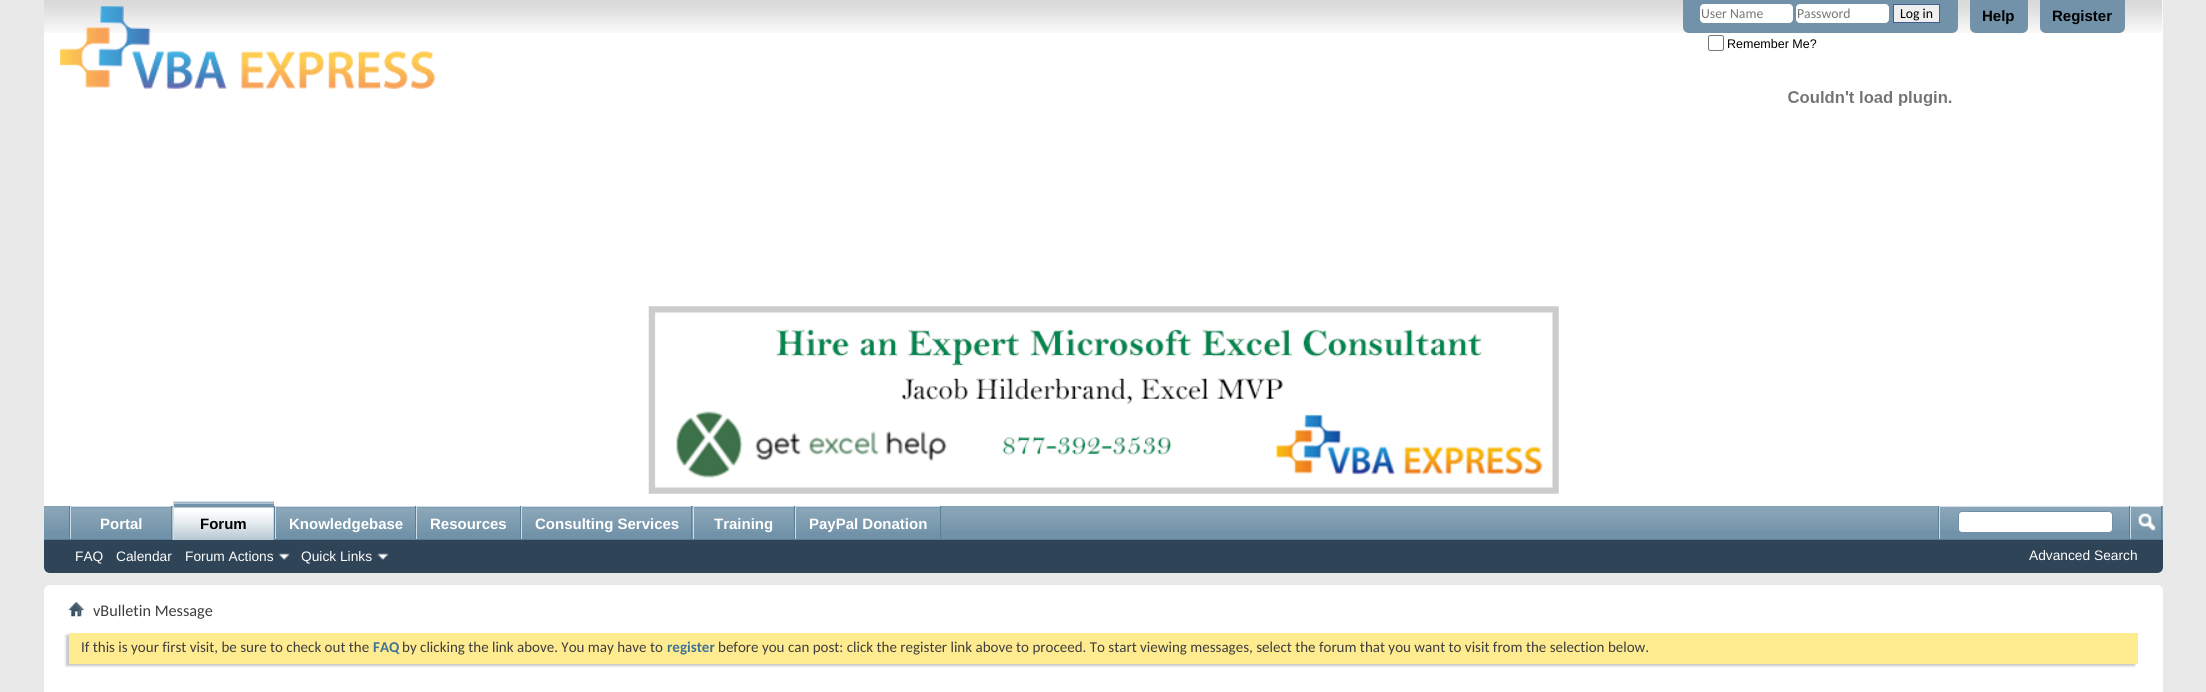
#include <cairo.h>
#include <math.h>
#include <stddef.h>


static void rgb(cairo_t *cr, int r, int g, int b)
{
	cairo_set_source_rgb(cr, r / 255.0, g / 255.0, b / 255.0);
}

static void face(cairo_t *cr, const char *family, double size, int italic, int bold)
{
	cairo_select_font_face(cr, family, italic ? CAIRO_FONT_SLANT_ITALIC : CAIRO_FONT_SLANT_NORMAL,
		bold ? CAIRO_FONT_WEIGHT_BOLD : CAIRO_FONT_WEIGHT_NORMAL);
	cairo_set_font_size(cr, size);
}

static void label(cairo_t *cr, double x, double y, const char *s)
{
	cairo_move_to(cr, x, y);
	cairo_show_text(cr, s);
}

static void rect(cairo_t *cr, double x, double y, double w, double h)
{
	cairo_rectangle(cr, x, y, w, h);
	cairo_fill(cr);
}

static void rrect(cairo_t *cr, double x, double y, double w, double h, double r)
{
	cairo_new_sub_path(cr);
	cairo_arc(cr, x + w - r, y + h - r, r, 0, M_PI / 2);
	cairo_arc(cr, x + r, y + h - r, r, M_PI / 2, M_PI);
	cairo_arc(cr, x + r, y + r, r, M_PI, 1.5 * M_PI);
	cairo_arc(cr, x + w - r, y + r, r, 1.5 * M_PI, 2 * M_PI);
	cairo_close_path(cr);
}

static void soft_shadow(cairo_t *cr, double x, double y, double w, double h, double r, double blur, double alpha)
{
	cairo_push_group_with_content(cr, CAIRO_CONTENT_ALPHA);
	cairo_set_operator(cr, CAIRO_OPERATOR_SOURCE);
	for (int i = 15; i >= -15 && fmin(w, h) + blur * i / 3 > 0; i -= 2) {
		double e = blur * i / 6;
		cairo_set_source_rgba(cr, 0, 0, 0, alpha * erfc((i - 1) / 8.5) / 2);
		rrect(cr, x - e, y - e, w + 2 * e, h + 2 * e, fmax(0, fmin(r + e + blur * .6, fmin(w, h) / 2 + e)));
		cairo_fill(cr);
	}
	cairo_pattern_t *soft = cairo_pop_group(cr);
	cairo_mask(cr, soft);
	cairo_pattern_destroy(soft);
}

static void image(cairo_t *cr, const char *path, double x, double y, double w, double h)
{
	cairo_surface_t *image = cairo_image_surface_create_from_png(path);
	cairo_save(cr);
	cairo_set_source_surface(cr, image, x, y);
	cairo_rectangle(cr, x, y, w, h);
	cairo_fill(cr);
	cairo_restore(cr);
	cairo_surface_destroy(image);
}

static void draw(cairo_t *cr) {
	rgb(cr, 233, 233, 233);
	cairo_paint(cr);
	rgb(cr, 255, 255, 255);
	cairo_new_path(cr);
	cairo_move_to(cr, 44, 0);
	cairo_line_to(cr, 2163, 0);
	cairo_line_to(cr, 2163, 567);
	cairo_curve_to(cr, 2163, 570.5, 2160.5, 573, 2157, 573);
	cairo_line_to(cr, 50, 573);
	cairo_curve_to(cr, 46.5, 573, 44, 570.5, 44, 567);
	cairo_close_path(cr);
	cairo_fill(cr);
	image(cr, "image0.png", 44, 0, 2119, 33);
	image(cr, "image1.png", 59, 6, 377, 83);
	rgb(cr, 113, 146, 168);
	cairo_new_path(cr);
	cairo_move_to(cr, 1683, 0);
	cairo_line_to(cr, 1958, 0);
	cairo_line_to(cr, 1958, 27);
	cairo_curve_to(cr, 1958, 30.5, 1955.5, 33, 1952, 33);
	cairo_line_to(cr, 1689, 33);
	cairo_curve_to(cr, 1685.5, 33, 1683, 30.5, 1683, 27);
	cairo_close_path(cr);
	cairo_fill(cr);
	rgb(cr, 255, 255, 255);
	rrect(cr, 1700, 4, 93, 19, 4);
	cairo_fill(cr);
	face(cr, "Carlito", 13.75, 0, 0);
	rgb(cr, 119, 119, 119);
	label(cr, 1701, 18, "User Name");
	rgb(cr, 255, 255, 255);
	rrect(cr, 1796, 4, 93, 19, 4);
	cairo_fill(cr);
	rgb(cr, 119, 119, 119);
	label(cr, 1797, 18, "Password");
	rgb(cr, 239, 239, 239);
	cairo_rectangle(cr, 1893.5, 4.5, 46, 18);
	cairo_fill_preserve(cr);
	rgb(cr, 65, 93, 141);
	cairo_set_line_width(cr, 1);
	cairo_stroke(cr);
	rgb(cr, 0, 0, 0);
	label(cr, 1900, 18, "Log in");
	rrect(cr, 1708.5, 35.5, 15, 15, 2);
	rgb(cr, 118, 118, 118);
	cairo_stroke(cr);
	face(cr, "Liberation Sans", 12.5, 0, 0);
	rgb(cr, 0, 0, 0);
	label(cr, 1727, 48, "Remember Me?");
	rgb(cr, 113, 146, 168);
	cairo_new_path(cr);
	cairo_move_to(cr, 1970, 0);
	cairo_line_to(cr, 2028, 0);
	cairo_line_to(cr, 2028, 27);
	cairo_curve_to(cr, 2028, 30.5, 2025.5, 33, 2022, 33);
	cairo_line_to(cr, 1976, 33);
	cairo_curve_to(cr, 1972.5, 33, 1970, 30.5, 1970, 27);
	cairo_close_path(cr);
	cairo_fill(cr);
	face(cr, "Liberation Sans", 15, 0, 1);
	rgb(cr, 0, 0, 0);
	label(cr, 1982, 21, "Help");
	rgb(cr, 113, 146, 168);
	cairo_new_path(cr);
	cairo_move_to(cr, 2040, 0);
	cairo_line_to(cr, 2125, 0);
	cairo_line_to(cr, 2125, 27);
	cairo_curve_to(cr, 2125, 30.5, 2122.5, 33, 2119, 33);
	cairo_line_to(cr, 2046, 33);
	cairo_curve_to(cr, 2042.5, 33, 2040, 30.5, 2040, 27);
	cairo_close_path(cr);
	cairo_fill(cr);
	rgb(cr, 0, 0, 0);
	label(cr, 2052, 21, "Register");
	image(cr, "image2.png", 1788, 91, 164, 15);
	image(cr, "image3.png", 648, 306, 911, 188);
	rgb(cr, 47, 68, 86);
	cairo_new_path(cr);
	cairo_move_to(cr, 44, 506);
	cairo_line_to(cr, 2163, 506);
	cairo_line_to(cr, 2163, 567);
	cairo_curve_to(cr, 2163, 570.5, 2160.5, 573, 2157, 573);
	cairo_line_to(cr, 50, 573);
	cairo_curve_to(cr, 46.5, 573, 44, 570.5, 44, 567);
	cairo_close_path(cr);
	cairo_fill(cr);
	rgb(cr, 113, 146, 168);
	rect(cr, 44, 506, 2119, 33);
	image(cr, "image4.png", 44, 506, 2119, 25);
	rgb(cr, 90, 127, 151);
	rect(cr, 171, 506, 1, 34);
	rect(cr, 69, 506, 1, 34);
	rgb(cr, 113, 146, 168);
	rect(cr, 71, 507, 100, 24);
	image(cr, "image5.png", 71, 507, 101, 25);
	rgb(cr, 206, 223, 235);
	rect(cr, 70, 506, 101, 1);
	rect(cr, 70, 506, 1, 34);
	rgb(cr, 255, 255, 255);
	label(cr, 100, 529, "Portal");
	rgb(cr, 90, 127, 151);
	rect(cr, 274, 506, 1, 33);
	rect(cr, 415, 506, 1, 34);
	rgb(cr, 206, 223, 235);
	rect(cr, 275, 506, 140, 1);
	rect(cr, 275, 506, 1, 34);
	rgb(cr, 90, 127, 151);
	rect(cr, 520, 506, 1, 34);
	rgb(cr, 206, 223, 235);
	rect(cr, 416, 506, 104, 1);
	rect(cr, 416, 506, 1, 34);
	rgb(cr, 90, 127, 151);
	rect(cr, 691, 506, 1, 34);
	rgb(cr, 206, 223, 235);
	rect(cr, 521, 506, 170, 1);
	rect(cr, 521, 506, 1, 34);
	rgb(cr, 90, 127, 151);
	rect(cr, 794, 506, 1, 34);
	rgb(cr, 113, 146, 168);
	rect(cr, 694, 507, 100, 24);
	image(cr, "image10.png", 692, 507, 102, 25);
	rgb(cr, 206, 223, 235);
	rect(cr, 693, 506, 101, 1);
	rect(cr, 693, 506, 1, 34);
	rgb(cr, 90, 127, 151);
	rect(cr, 940, 506, 1, 34);
	rgb(cr, 206, 223, 235);
	rect(cr, 795, 506, 145, 1);
	rect(cr, 795, 506, 1, 34);
	rgb(cr, 90, 127, 151);
	rect(cr, 44, 539, 2119, 1);
	rgb(cr, 113, 146, 168);
	rect(cr, 174, 502, 100, 38);
	image(cr, "image6.png", 172, 502, 102, 38);
	rgb(cr, 206, 223, 235);
	rect(cr, 173, 501, 101, 1);
	rect(cr, 173, 501, 1, 39);
	rgb(cr, 0, 0, 0);
	label(cr, 200, 529, "Forum");
	rgb(cr, 113, 146, 168);
	rect(cr, 276, 507, 139, 24);
	image(cr, "image7.png", 276, 507, 139, 25);
	rgb(cr, 255, 255, 255);
	label(cr, 289, 529, "Knowledgebase");
	rgb(cr, 113, 146, 168);
	rect(cr, 417, 507, 103, 24);
	image(cr, "image8.png", 417, 507, 103, 25);
	rgb(cr, 255, 255, 255);
	label(cr, 430, 529, "Resources");
	rgb(cr, 113, 146, 168);
	rect(cr, 522, 507, 169, 24);
	image(cr, "image9.png", 522, 507, 170, 25);
	rgb(cr, 255, 255, 255);
	label(cr, 535, 529, "Consulting Services");
	label(cr, 714, 529, "Training");
	rgb(cr, 113, 146, 168);
	rect(cr, 796, 507, 144, 24);
	image(cr, "image11.png", 796, 507, 144, 25);
	rgb(cr, 255, 255, 255);
	label(cr, 809, 529, "PayPal Donation");
	face(cr, "Liberation Sans", 13.75, 0, 0);
	label(cr, 75, 561, "FAQ");
	label(cr, 116, 561, "Calendar");
	label(cr, 185, 561, "Forum Actions");
	image(cr, "image12.png", 278, 553, 12, 7);
	label(cr, 301, 561, "Quick Links");
	image(cr, "image13.png", 377, 553, 12, 7);
	rgb(cr, 90, 127, 151);
	rect(cr, 1938, 506, 1, 33);
	rgb(cr, 206, 223, 235);
	rect(cr, 1939, 506, 190, 1);
	rect(cr, 1939, 506, 1, 33);
	rgb(cr, 255, 255, 255);
	rrect(cr, 1958.5, 511.5, 154, 21, 3.5);
	cairo_fill_preserve(cr);
	rgb(cr, 107, 145, 171);
	cairo_stroke(cr);
	rgb(cr, 90, 127, 151);
	rect(cr, 2161, 506, 1, 33);
	rect(cr, 2129, 506, 1, 33);
	rgb(cr, 206, 223, 235);
	rect(cr, 2130, 506, 31, 1);
	rect(cr, 2130, 506, 1, 33);
	image(cr, "image14.png", 2138, 513, 18, 18);
	rgb(cr, 255, 255, 255);
	label(cr, 2029, 560, "Advanced Search");
	rrect(cr, 44, 585, 2119, 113, 6);
	cairo_fill(cr);
	image(cr, "image15.png", 68, 602, 16, 15);
	face(cr, "Carlito", 16.25, 0, 0);
	rgb(cr, 62, 62, 62);
	label(cr, 93, 616, "vBulletin Message");
	rgb(cr, 200, 200, 200);
	soft_shadow(cr, 66, 635, 2069, 31, 0, 1, 1);
	rgb(cr, 255, 235, 144);
	rect(cr, 69, 633, 2069, 31);
	face(cr, "Carlito", 15, 0, 0);
	rgb(cr, 62, 62, 62);
	label(cr, 81, 652, "If this is your first visit, be sure to check out the");
	face(cr, "Carlito", 15, 0, 1);
	rgb(cr, 65, 115, 148);
	label(cr, 373, 652, "FAQ");
	face(cr, "Carlito", 15, 0, 0);
	rgb(cr, 62, 62, 62);
	label(cr, 402, 652, "by clicking the link above. You may have to");
	face(cr, "Carlito", 15, 0, 1);
	rgb(cr, 65, 115, 148);
	label(cr, 667, 652, "register");
	face(cr, "Carlito", 15, 0, 0);
	rgb(cr, 62, 62, 62);
	label(cr, 718, 652, "before you can post: click the register link above to proceed. To start viewing messages, select the forum that you want to visit from the selection below.");
}

int main(void) {
	cairo_surface_t *surface = cairo_image_surface_create(CAIRO_FORMAT_RGB24, 2206, 692);
	cairo_t *cr = cairo_create(surface);
	cairo_font_options_t *options = cairo_font_options_create();
	cairo_font_options_set_hint_metrics(options, CAIRO_HINT_METRICS_OFF);
	cairo_font_options_set_hint_style(options, CAIRO_HINT_STYLE_NONE);
	cairo_set_font_options(cr, options);
	cairo_set_miter_limit(cr, 4);
	draw(cr);
	cairo_surface_write_to_png(surface, "render.png");
	cairo_font_options_destroy(options);
	cairo_destroy(cr);
	cairo_surface_destroy(surface);
	return 0;
}
